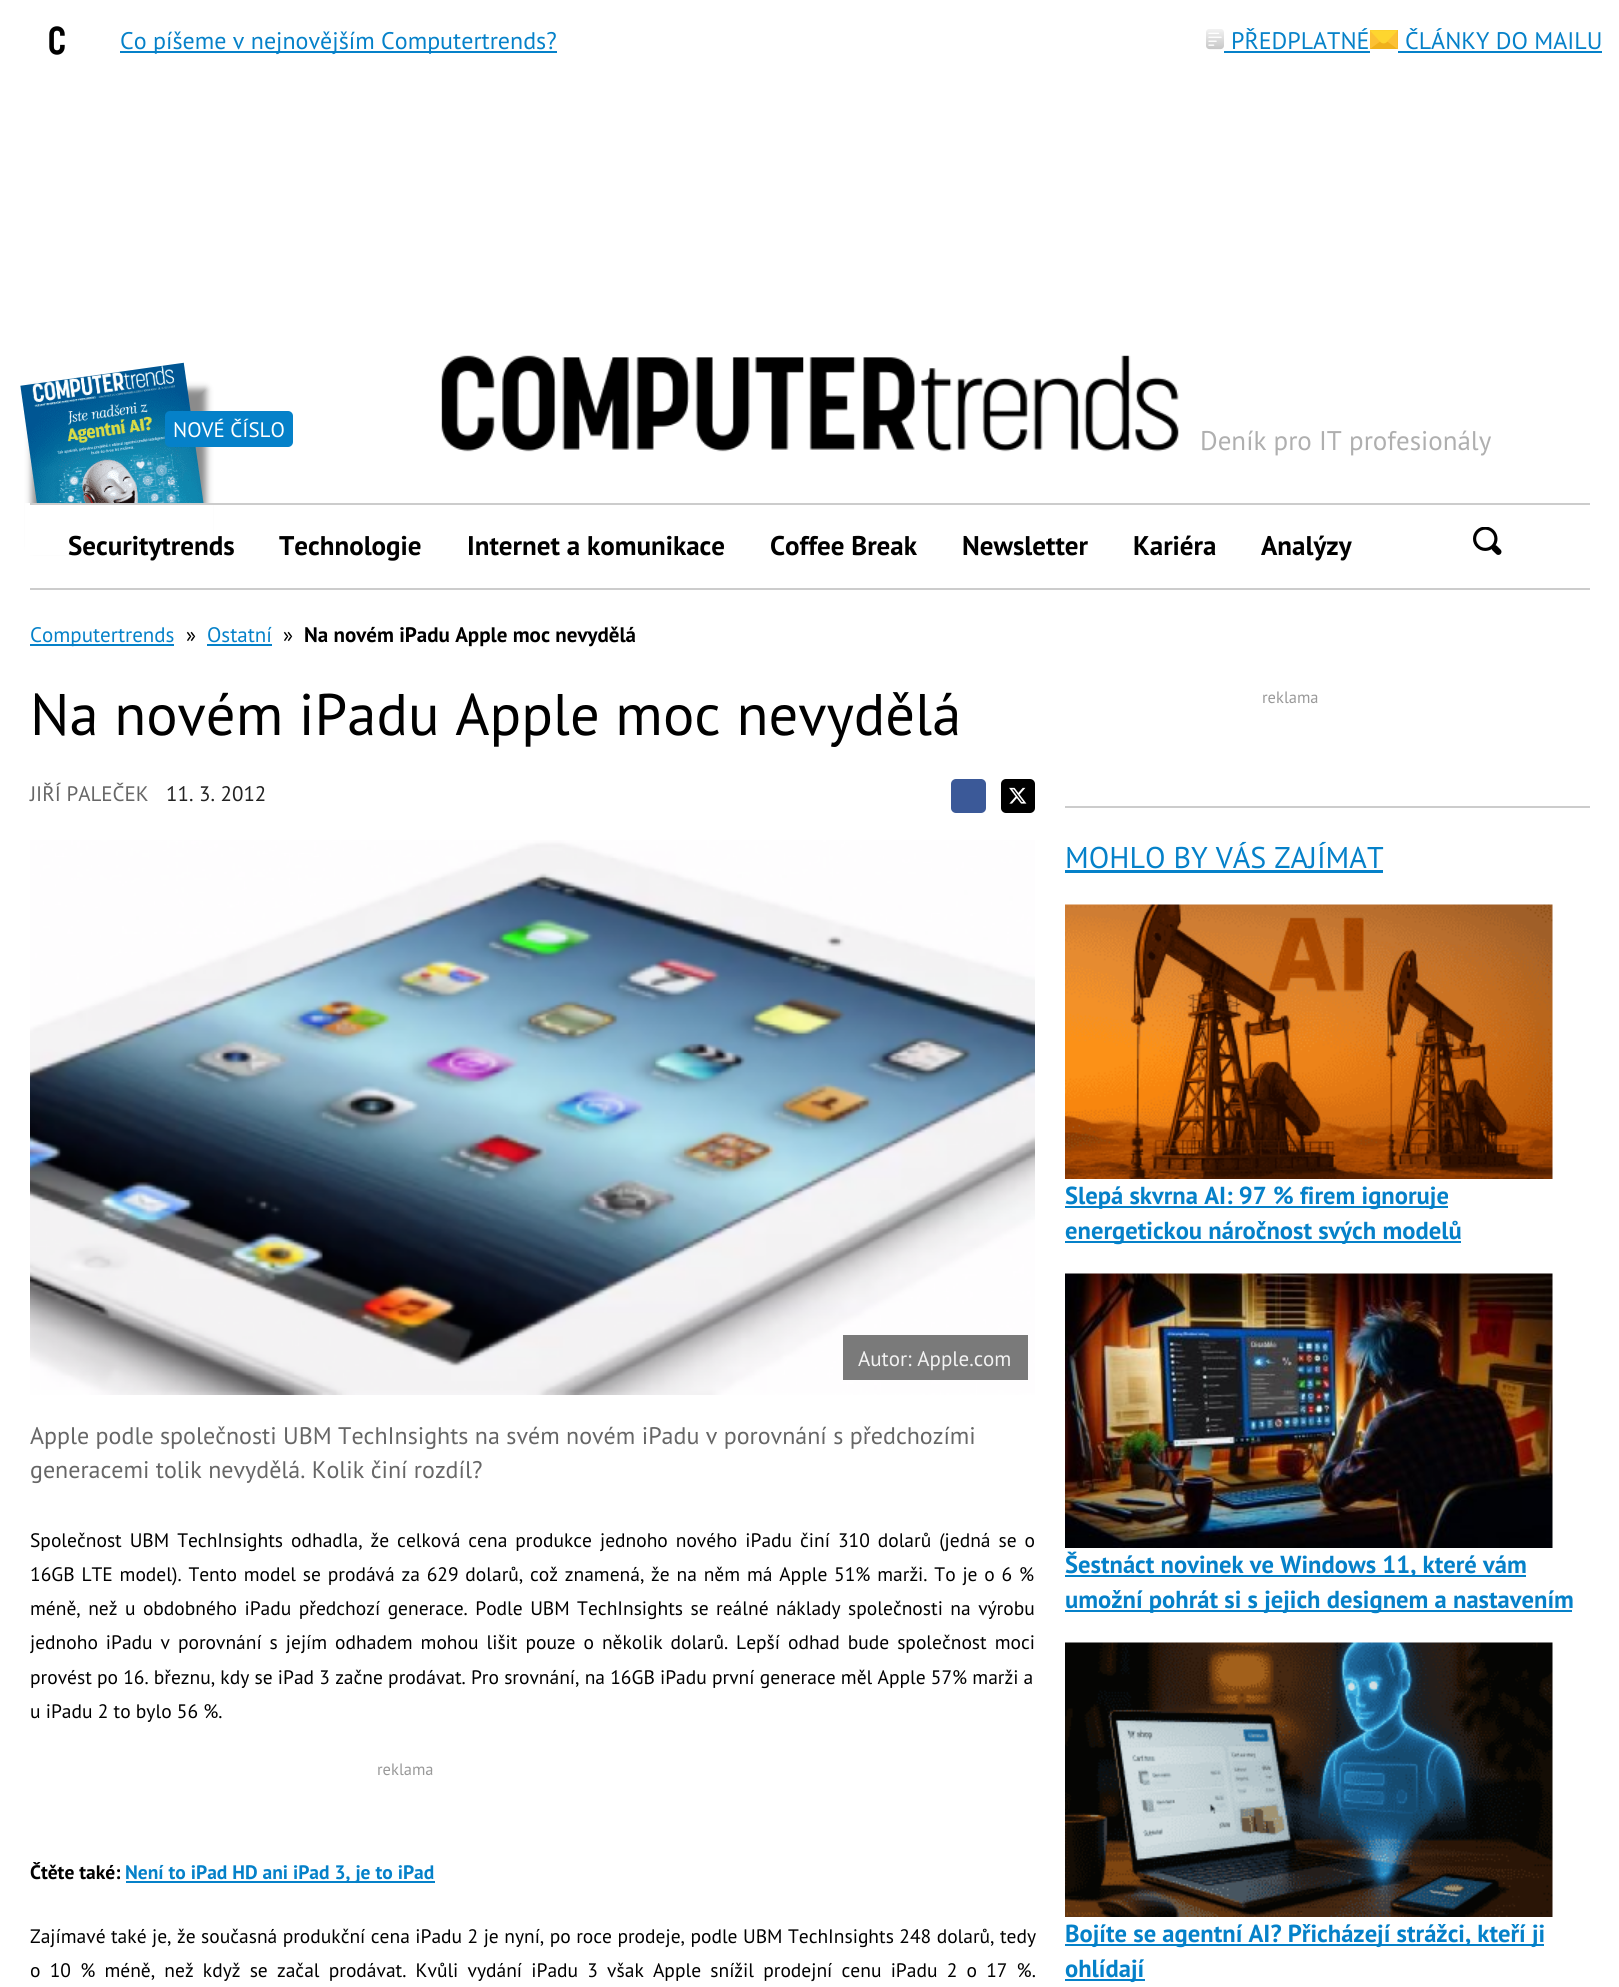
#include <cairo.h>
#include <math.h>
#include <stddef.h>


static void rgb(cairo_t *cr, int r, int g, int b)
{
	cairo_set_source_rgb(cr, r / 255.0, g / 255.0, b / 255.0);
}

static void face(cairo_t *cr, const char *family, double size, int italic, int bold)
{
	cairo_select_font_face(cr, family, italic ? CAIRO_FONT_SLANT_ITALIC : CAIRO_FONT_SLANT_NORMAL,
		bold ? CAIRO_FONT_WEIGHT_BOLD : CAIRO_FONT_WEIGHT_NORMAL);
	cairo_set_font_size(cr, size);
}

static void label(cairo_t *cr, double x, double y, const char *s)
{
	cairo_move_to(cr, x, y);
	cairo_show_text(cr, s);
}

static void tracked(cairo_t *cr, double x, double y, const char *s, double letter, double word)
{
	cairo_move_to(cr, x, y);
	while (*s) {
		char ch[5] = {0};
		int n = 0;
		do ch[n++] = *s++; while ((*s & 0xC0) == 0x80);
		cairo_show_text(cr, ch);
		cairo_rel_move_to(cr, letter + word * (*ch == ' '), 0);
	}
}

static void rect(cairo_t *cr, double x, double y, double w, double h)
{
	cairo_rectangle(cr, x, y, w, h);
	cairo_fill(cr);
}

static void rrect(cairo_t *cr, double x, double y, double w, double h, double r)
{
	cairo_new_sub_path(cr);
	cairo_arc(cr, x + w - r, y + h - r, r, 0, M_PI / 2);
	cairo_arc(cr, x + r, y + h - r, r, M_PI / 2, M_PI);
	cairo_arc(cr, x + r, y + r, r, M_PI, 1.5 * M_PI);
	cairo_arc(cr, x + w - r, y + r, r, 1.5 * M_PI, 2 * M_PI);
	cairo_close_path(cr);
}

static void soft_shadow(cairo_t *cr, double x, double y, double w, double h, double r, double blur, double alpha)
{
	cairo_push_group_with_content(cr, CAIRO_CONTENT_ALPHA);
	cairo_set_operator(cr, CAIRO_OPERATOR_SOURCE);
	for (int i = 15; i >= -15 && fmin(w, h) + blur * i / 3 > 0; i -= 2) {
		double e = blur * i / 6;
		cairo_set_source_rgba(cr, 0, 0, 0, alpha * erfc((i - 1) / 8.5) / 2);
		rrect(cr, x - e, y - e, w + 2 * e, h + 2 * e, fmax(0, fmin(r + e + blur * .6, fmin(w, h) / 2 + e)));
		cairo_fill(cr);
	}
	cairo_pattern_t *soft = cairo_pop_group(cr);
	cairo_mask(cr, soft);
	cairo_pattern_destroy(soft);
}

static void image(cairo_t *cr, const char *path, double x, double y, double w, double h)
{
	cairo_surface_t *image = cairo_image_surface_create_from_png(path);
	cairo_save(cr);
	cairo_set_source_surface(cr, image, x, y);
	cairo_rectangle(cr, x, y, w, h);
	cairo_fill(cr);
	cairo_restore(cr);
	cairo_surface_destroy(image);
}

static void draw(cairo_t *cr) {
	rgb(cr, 255, 255, 255);
	cairo_paint(cr);
	image(cr, "image0.png", 49, 26, 16, 29);
	rgb(cr, 5, 129, 201);
	rect(cr, 120, 51, 437, 2);
	face(cr, "PT Sans", 24, 0, 0);
	label(cr, 120, 49, "Co píšeme v nejnovějším Computertrends?");
	image(cr, "image1.png", 1206, 29, 18, 21);
	label(cr, 1231, 49, "PŘEDPLATNÉ");
	rect(cr, 1224, 51, 146, 2);
	image(cr, "image2.png", 1370, 30, 28, 20);
	label(cr, 1405, 49, "ČLÁNKY DO MAILU");
	rect(cr, 1398, 51, 204, 2);
	rgb(cr, 139, 139, 139);
	soft_shadow(cr, 32, 389, 174, 159, 0, 3.5, 1);
	image(cr, "image3.png", 20, 362, 184, 141);
	rgb(cr, 5, 129, 201);
	rrect(cr, 165, 411, 128, 36, 5);
	cairo_fill(cr);
	face(cr, "PT Sans", 21, 0, 0);
	rgb(cr, 255, 255, 255);
	label(cr, 173, 437, "NOVÉ ČÍSLO");
	image(cr, "image4.png", 441, 355, 738, 97);
	face(cr, "PT Sans", 27, 0, 0);
	rgb(cr, 175, 175, 175);
	label(cr, 1200, 450, "Deník pro IT profesionály");
	rgb(cr, 255, 255, 255);
	rect(cr, 25, 503, 188, 52);
	rgb(cr, 204, 204, 204);
	rect(cr, 30, 503, 1560, 2);
	rect(cr, 30, 588, 1560, 2);
	face(cr, "PT Sans", 27, 0, 1);
	rgb(cr, 0, 0, 0);
	label(cr, 68, 555, "Securitytrends");
	label(cr, 279, 555, "Technologie");
	label(cr, 467, 555, "Internet a komunikace");
	label(cr, 770, 555, "Coffee Break");
	label(cr, 962, 555, "Newsletter");
	label(cr, 1133, 555, "Kariéra");
	label(cr, 1261, 555, "Analýzy");
	image(cr, "image5.png", 1473, 527, 29, 28);
	rgb(cr, 5, 129, 201);
	rect(cr, 30, 644, 144, 2);
	face(cr, "PT Sans", 21, 0, 0);
	label(cr, 30, 642, "Computertrends");
	rgb(cr, 0, 0, 0);
	label(cr, 186, 642, "»");
	rgb(cr, 5, 129, 201);
	label(cr, 207, 642, "Ostatní");
	rect(cr, 207, 644, 65, 2);
	rgb(cr, 0, 0, 0);
	label(cr, 283, 642, "»");
	face(cr, "PT Sans", 21, 0, 1);
	label(cr, 304, 642, "Na novém iPadu Apple moc nevydělá");
	face(cr, "PT Sans", 58.6, 0, 0);
	label(cr, 30, 735, "Na novém iPadu Apple moc nevydělá");
	face(cr, "PT Sans", 21, 0, 0);
	rgb(cr, 102, 102, 102);
	label(cr, 30, 801, "JIŘÍ PALEČEK");
	rgb(cr, 34, 34, 34);
	label(cr, 166, 801, "11. 3. 2012");
	rgb(cr, 59, 89, 152);
	rrect(cr, 951, 779, 35, 34, 5);
	cairo_fill(cr);
	rgb(cr, 0, 0, 0);
	rrect(cr, 1001, 779, 34, 34, 5);
	cairo_fill(cr);
	image(cr, "image6.png", 1009, 787, 18, 17);
	image(cr, "image7.png", 30, 840, 1005, 555);
	rgb(cr, 122, 122, 122);
	rect(cr, 843, 1335, 185, 45);
	rgb(cr, 242, 242, 242);
	label(cr, 858, 1366, "Autor: Apple.com");
	face(cr, "PT Sans", 24, 0, 0);
	rgb(cr, 102, 102, 102);
	label(cr, 30, 1444, "Apple podle společnosti UBM TechInsights na svém novém iPadu v porovnání s předchozími");
	label(cr, 30, 1478, "generacemi tolik nevydělá. Kolik činí rozdíl?");
	face(cr, "PT Sans", 19.5, 0, 0);
	rgb(cr, 0, 0, 0);
	tracked(cr, 30, 1547, "Společnost UBM TechInsights odhadla, že celková cena produkce jednoho nového iPadu činí 310 dolarů (jedná se o", 0, 2.75);
	tracked(cr, 30, 1581, "16GB LTE model). Tento model se prodává za 629 dolarů, což znamená, že na něm má Apple 51% marži. To je o 6 %", 0, 1.6);
	tracked(cr, 30, 1615, "méně, než u obdobného iPadu předchozí generace. Podle UBM TechInsights se reálné náklady společnosti na výrobu", 0, 2.25);
	tracked(cr, 30, 1649, "jednoho iPadu v porovnání s jejím odhadem mohou lišit pouze o několik dolarů. Lepší odhad bude společnost moci", 0, 2.75);
	label(cr, 30, 1684, "provést po 16. březnu, kdy se iPad 3 začne prodávat. Pro srovnání, na 16GB iPadu první generace měl Apple 57% marži a");
	label(cr, 30, 1718, "u iPadu 2 to bylo 56 %.");
	face(cr, "PT Sans", 16.5, 0, 0);
	rgb(cr, 153, 153, 153);
	label(cr, 377, 1775, "reklama");
	face(cr, "PT Sans", 19.5, 0, 1);
	rgb(cr, 0, 0, 0);
	label(cr, 30, 1879, "Čtěte také:");
	rgb(cr, 5, 129, 201);
	rect(cr, 126, 1881, 309, 2);
	label(cr, 125, 1879, "Není to iPad HD ani iPad 3, je to iPad");
	face(cr, "PT Sans", 19.5, 0, 0);
	rgb(cr, 0, 0, 0);
	tracked(cr, 30, 1943, "Zajímavé také je, že současná produkční cena iPadu 2 je nyní, po roce prodeje, podle UBM TechInsights 248 dolarů, tedy", 0, 0.25);
	tracked(cr, 30, 1977, "o 10 % méně, než když se začal prodávat. Kvůli vydání iPadu 3 však Apple snížil prodejní cenu iPadu 2 o 17 %.", 0, 4);
	face(cr, "PT Sans", 16.5, 0, 0);
	rgb(cr, 153, 153, 153);
	label(cr, 1262, 703, "reklama");
	rgb(cr, 204, 204, 204);
	rect(cr, 1065, 806, 525, 2);
	face(cr, "PT Sans", 30, 0, 0);
	rgb(cr, 5, 129, 201);
	label(cr, 1065, 868, "MOHLO BY VÁS ZAJÍMAT");
	rect(cr, 1065, 870, 318, 3);
	image(cr, "image8.png", 1065, 904, 488, 275);
	rect(cr, 1065, 1206, 383, 2);
	face(cr, "PT Sans", 24.6, 0, 1);
	label(cr, 1065, 1204, "Slepá skvrna AI: 97 % firem ignoruje");
	rect(cr, 1065, 1241, 396, 2);
	label(cr, 1065, 1239, "energetickou náročnost svých modelů");
	image(cr, "image9.png", 1065, 1273, 488, 275);
	rect(cr, 1065, 1575, 461, 2);
	label(cr, 1065, 1573, "Šestnáct novinek ve Windows 11, které vám");
	rect(cr, 1065, 1610, 507, 2);
	label(cr, 1065, 1608, "umožní pohrát si s jejich designem a nastavením");
	image(cr, "image10.png", 1065, 1642, 488, 275);
	rect(cr, 1065, 1944, 479, 2);
	label(cr, 1065, 1942, "Bojíte se agentní AI? Přicházejí strážci, kteří ji");
	rect(cr, 1065, 1979, 80, 2);
	label(cr, 1065, 1977, "ohlídají");
}

int main(void) {
	cairo_surface_t *surface = cairo_image_surface_create(CAIRO_FORMAT_RGB24, 1619, 1987);
	cairo_t *cr = cairo_create(surface);
	cairo_font_options_t *options = cairo_font_options_create();
	cairo_font_options_set_hint_metrics(options, CAIRO_HINT_METRICS_OFF);
	cairo_font_options_set_hint_style(options, CAIRO_HINT_STYLE_NONE);
	cairo_set_font_options(cr, options);
	cairo_set_miter_limit(cr, 4);
	draw(cr);
	cairo_surface_write_to_png(surface, "render.png");
	cairo_font_options_destroy(options);
	cairo_destroy(cr);
	cairo_surface_destroy(surface);
	return 0;
}
